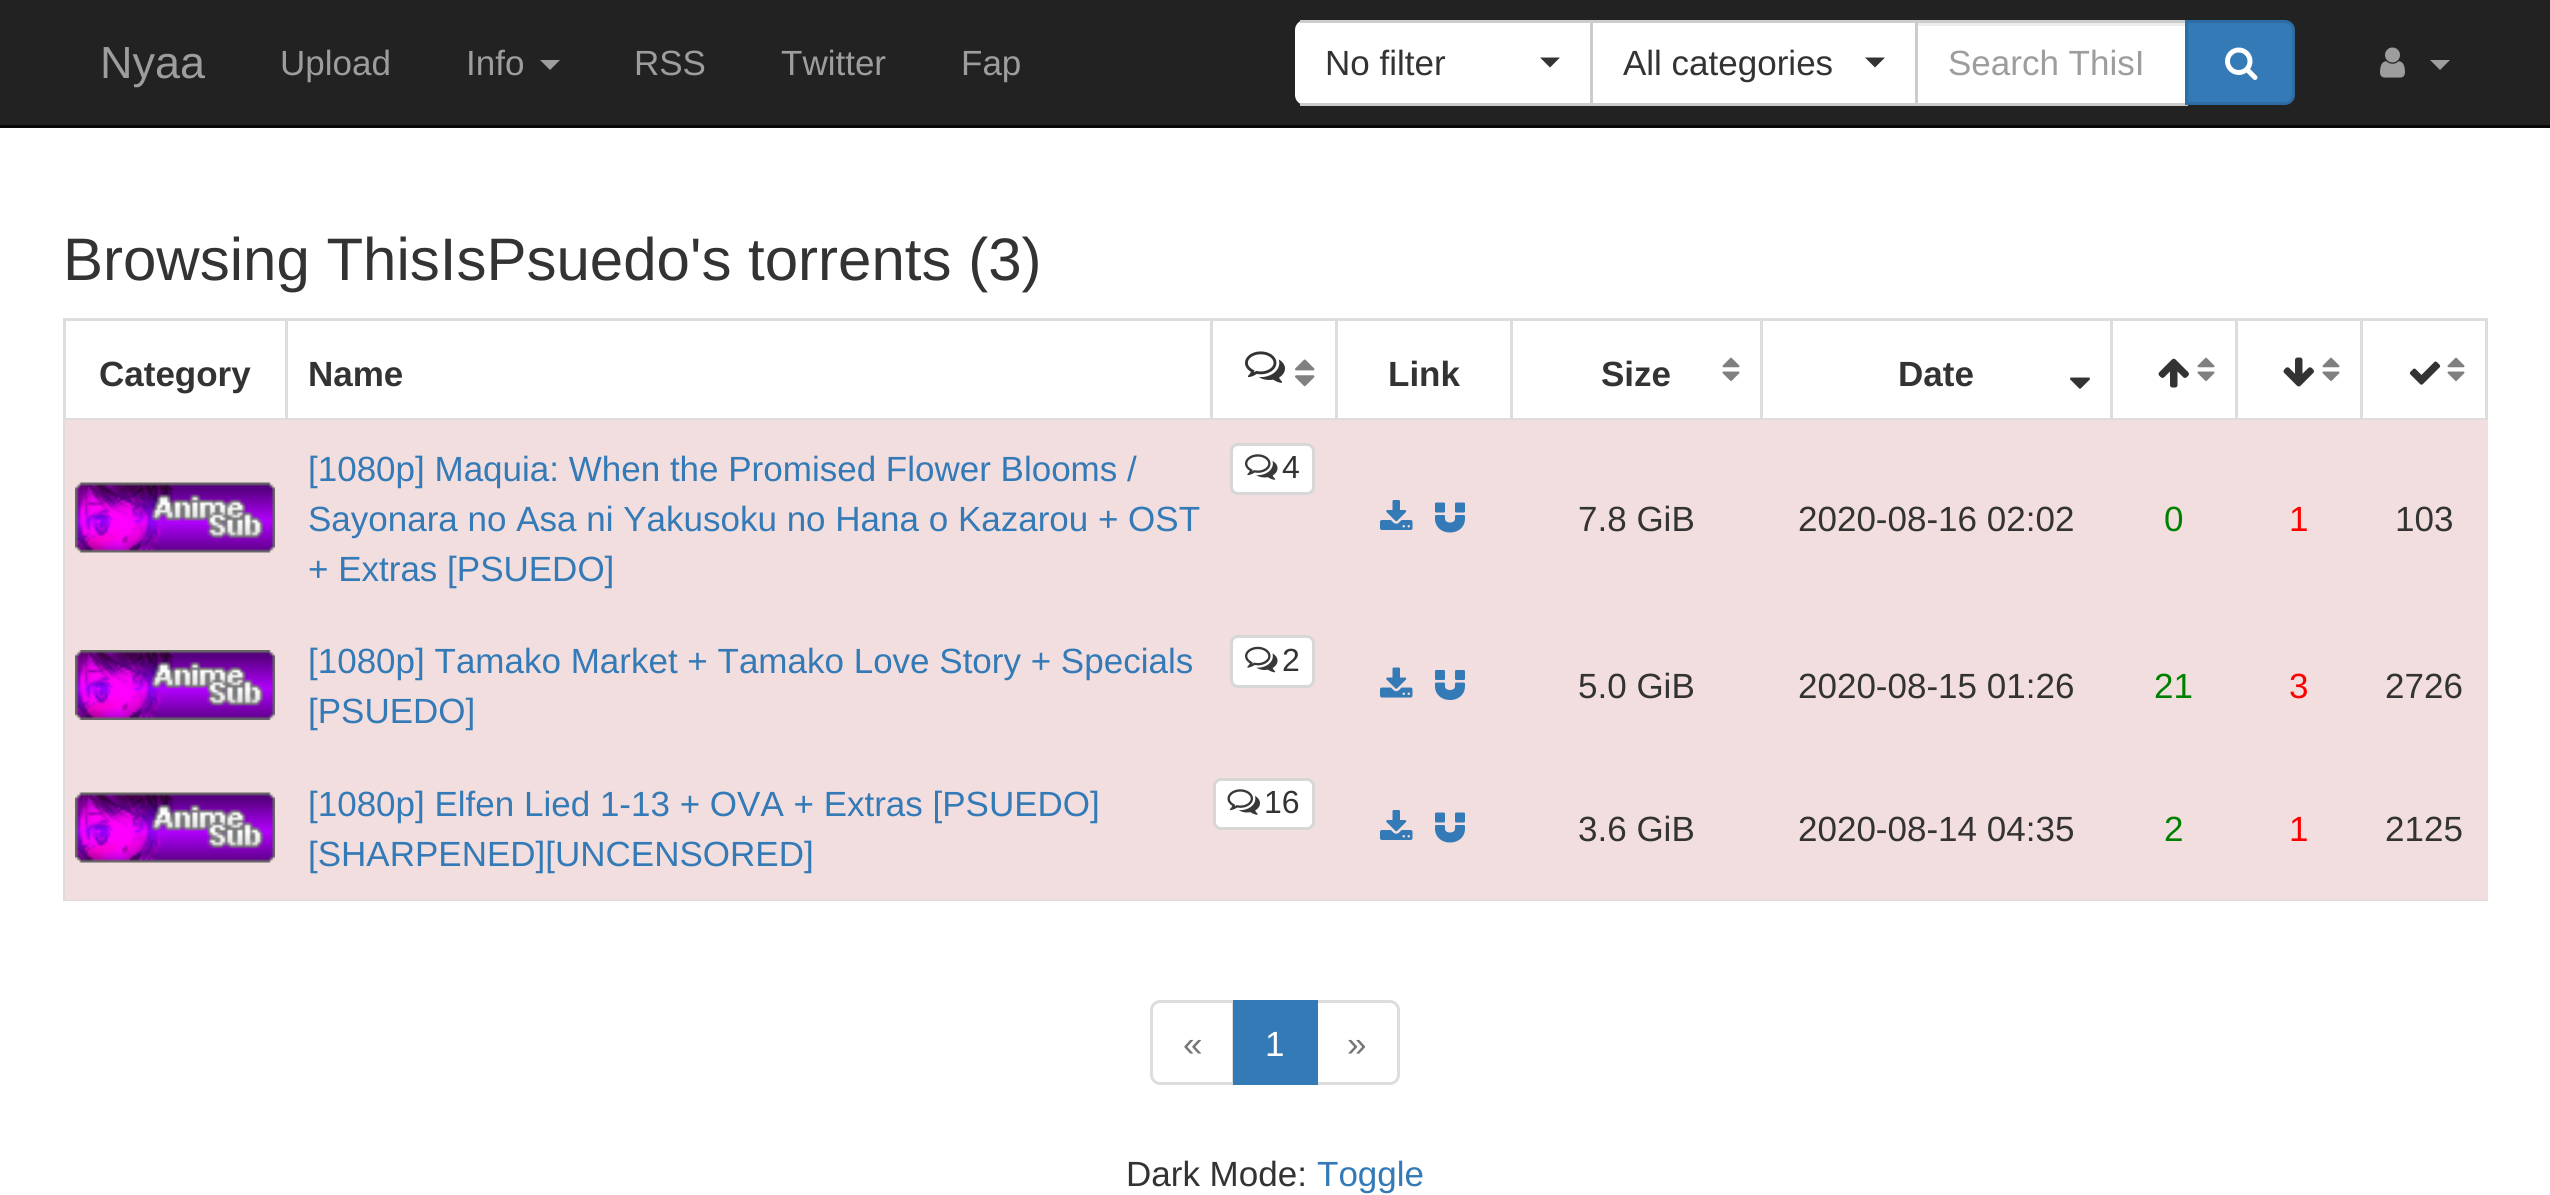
#include <cairo.h>
#include <math.h>
#include <stddef.h>


static void rgb(cairo_t *cr, int r, int g, int b)
{
	cairo_set_source_rgb(cr, r / 255.0, g / 255.0, b / 255.0);
}

static void face(cairo_t *cr, const char *family, double size, int italic, int bold)
{
	cairo_select_font_face(cr, family, italic ? CAIRO_FONT_SLANT_ITALIC : CAIRO_FONT_SLANT_NORMAL,
		bold ? CAIRO_FONT_WEIGHT_BOLD : CAIRO_FONT_WEIGHT_NORMAL);
	cairo_set_font_size(cr, size);
}

static void label(cairo_t *cr, double x, double y, const char *s)
{
	cairo_move_to(cr, x, y);
	cairo_show_text(cr, s);
}

static void rect(cairo_t *cr, double x, double y, double w, double h)
{
	cairo_rectangle(cr, x, y, w, h);
	cairo_fill(cr);
}

static void rrect(cairo_t *cr, double x, double y, double w, double h, double r)
{
	cairo_new_sub_path(cr);
	cairo_arc(cr, x + w - r, y + h - r, r, 0, M_PI / 2);
	cairo_arc(cr, x + r, y + h - r, r, M_PI / 2, M_PI);
	cairo_arc(cr, x + r, y + r, r, M_PI, 1.5 * M_PI);
	cairo_arc(cr, x + w - r, y + r, r, 1.5 * M_PI, 2 * M_PI);
	cairo_close_path(cr);
}

static void image(cairo_t *cr, const char *path, double x, double y, double w, double h)
{
	cairo_surface_t *image = cairo_image_surface_create_from_png(path);
	cairo_save(cr);
	cairo_set_source_surface(cr, image, x, y);
	cairo_rectangle(cr, x, y, w, h);
	cairo_fill(cr);
	cairo_restore(cr);
	cairo_surface_destroy(image);
}

static void draw(cairo_t *cr) {
	rgb(cr, 255, 255, 255);
	cairo_paint(cr);
	rgb(cr, 34, 34, 34);
	rect(cr, 0, 0, 2550, 125);
	rgb(cr, 8, 8, 8);
	rect(cr, 0, 125, 2550, 3);
	face(cr, "Liberation Sans", 45, 0, 0);
	rgb(cr, 157, 157, 157);
	label(cr, 100, 78, "Nyaa");
	face(cr, "Liberation Sans", 35, 0, 0);
	label(cr, 280, 75, "Upload");
	label(cr, 466, 75, "Info");
	cairo_new_path(cr);
	cairo_move_to(cr, 540, 60);
	cairo_line_to(cr, 560, 60);
	cairo_line_to(cr, 550, 70);
	cairo_close_path(cr);
	cairo_fill(cr);
	label(cr, 634, 75, "RSS");
	label(cr, 781, 75, "Twitter");
	label(cr, 961, 75, "Fap");
	rgb(cr, 255, 255, 255);
	cairo_new_path(cr);
	cairo_move_to(cr, 1305, 20);
	cairo_line_to(cr, 1593, 20);
	cairo_line_to(cr, 1593, 105);
	cairo_line_to(cr, 1305, 105);
	cairo_curve_to(cr, 1299.5, 105, 1295, 100.5, 1295, 95);
	cairo_line_to(cr, 1295, 30);
	cairo_curve_to(cr, 1295, 24.5, 1299.5, 20, 1305, 20);
	cairo_close_path(cr);
	cairo_fill(cr);
	rgb(cr, 204, 204, 204);
	rect(cr, 1300, 20, 888, 3);
	rect(cr, 1590, 20, 3, 85);
	rect(cr, 1300, 103, 293, 3);
	rgb(cr, 51, 51, 51);
	label(cr, 1325, 75, "No filter");
	cairo_new_path(cr);
	cairo_move_to(cr, 1540, 57.5);
	cairo_line_to(cr, 1560, 57.5);
	cairo_line_to(cr, 1550, 67.5);
	cairo_close_path(cr);
	cairo_fill(cr);
	rgb(cr, 255, 255, 255);
	rect(cr, 1593, 23, 322, 80);
	rgb(cr, 204, 204, 204);
	rect(cr, 1915, 20, 3, 85);
	rect(cr, 1593, 103, 595, 3);
	rgb(cr, 51, 51, 51);
	label(cr, 1623, 75, "All categories");
	cairo_new_path(cr);
	cairo_move_to(cr, 1865, 57.5);
	cairo_line_to(cr, 1885, 57.5);
	cairo_line_to(cr, 1875, 67.5);
	cairo_close_path(cr);
	cairo_fill(cr);
	rgb(cr, 255, 255, 255);
	rect(cr, 1918, 26, 267, 77);
	rgb(cr, 236, 236, 236);
	rect(cr, 1918, 23, 267, 3);
	rgb(cr, 157, 157, 157);
	label(cr, 1948, 75, "Search ThisI");
	rgb(cr, 51, 122, 183);
	cairo_new_path(cr);
	cairo_move_to(cr, 2186.5, 21.5);
	cairo_line_to(cr, 2285, 21.5);
	cairo_curve_to(cr, 2289.5, 21.5, 2293.5, 25.5, 2293.5, 30);
	cairo_line_to(cr, 2293.5, 95);
	cairo_curve_to(cr, 2293.5, 99.5, 2289.5, 103.5, 2285, 103.5);
	cairo_line_to(cr, 2186.5, 103.5);
	cairo_close_path(cr);
	cairo_fill_preserve(cr);
	rgb(cr, 46, 109, 164);
	cairo_set_line_width(cr, 3);
	cairo_stroke(cr);
	image(cr, "image0.png", 2225, 47, 33, 33);
	image(cr, "image1.png", 2380, 47, 25, 31);
	rgb(cr, 157, 157, 157);
	cairo_new_path(cr);
	cairo_move_to(cr, 2430, 60);
	cairo_line_to(cr, 2450, 60);
	cairo_line_to(cr, 2440, 70);
	cairo_close_path(cr);
	cairo_fill(cr);
	face(cr, "Liberation Sans", 60, 0, 0);
	rgb(cr, 51, 51, 51);
	label(cr, 63, 280, "Browsing ThisIsPsuedo's torrents (3)");
	rgb(cr, 221, 221, 221);
	rect(cr, 63, 318, 2425, 3);
	rect(cr, 2485, 318, 3, 100);
	rect(cr, 63, 900, 2425, 1);
	rect(cr, 63, 318, 3, 582);
	rect(cr, 2360, 318, 3, 105);
	rect(cr, 1210, 318, 3, 105);
	rect(cr, 285, 318, 3, 105);
	rect(cr, 1335, 318, 3, 105);
	rect(cr, 1510, 318, 3, 105);
	rect(cr, 1760, 318, 3, 105);
	rect(cr, 2110, 318, 3, 105);
	rect(cr, 2235, 318, 3, 105);
	rect(cr, 285, 418, 2203, 2);
	image(cr, "image2.png", 2409, 361, 32, 24);
	image(cr, "image3.png", 2447, 357, 18, 24);
	rect(cr, 63, 418, 227, 5);
	face(cr, "Liberation Sans", 35, 0, 1);
	rgb(cr, 51, 51, 51);
	label(cr, 99, 386, "Category");
	label(cr, 308, 386, "Name");
	image(cr, "image4.png", 1245, 351, 40, 32);
	image(cr, "image5.png", 1295, 359, 20, 28);
	label(cr, 1388, 386, "Link");
	label(cr, 1601, 386, "Size");
	image(cr, "image3.png", 1722, 357, 18, 24);
	label(cr, 1898, 386, "Date");
	image(cr, "image6.png", 2070, 377, 20, 12);
	image(cr, "image7.png", 2158, 358, 31, 30);
	image(cr, "image3.png", 2197, 357, 18, 24);
	image(cr, "image8.png", 2283, 357, 31, 30);
	image(cr, "image3.png", 2322, 357, 18, 24);
	rgb(cr, 242, 222, 222);
	rect(cr, 65, 420, 2423, 195);
	image(cr, "image9.png", 75, 482, 200, 71);
	face(cr, "Liberation Sans", 35, 0, 0);
	rgb(cr, 51, 122, 183);
	label(cr, 308, 481, "[1080p] Maquia: When the Promised Flower Blooms /");
	rgb(cr, 255, 255, 255);
	rrect(cr, 1231.5, 444.5, 82, 49, 6.5);
	cairo_fill_preserve(cr);
	rgb(cr, 215, 215, 215);
	cairo_stroke(cr);
	image(cr, "image10.png", 1245, 454, 33, 26);
	face(cr, "Liberation Sans", 32, 0, 0);
	rgb(cr, 51, 51, 51);
	label(cr, 1282, 478, "4");
	face(cr, "Liberation Sans", 35, 0, 0);
	rgb(cr, 51, 122, 183);
	label(cr, 308, 531, "Sayonara no Asa ni Yakusoku no Hana o Kazarou + OST");
	label(cr, 308, 581, "+ Extras [PSUEDO]");
	image(cr, "image11.png", 1380, 500, 33, 30);
	image(cr, "image12.png", 1435, 502, 30, 31);
	rgb(cr, 51, 51, 51);
	label(cr, 1578, 531, "7.8 GiB");
	label(cr, 1798, 531, "2020-08-16 02:02");
	rgb(cr, 0, 128, 0);
	label(cr, 2164, 531, "0");
	rgb(cr, 255, 0, 0);
	label(cr, 2289, 531, "1");
	rgb(cr, 51, 51, 51);
	label(cr, 2395, 531, "103");
	rgb(cr, 242, 222, 222);
	rect(cr, 65, 615, 2423, 143);
	image(cr, "image13.png", 75, 650, 200, 70);
	rgb(cr, 51, 122, 183);
	label(cr, 308, 673, "[1080p] Tamako Market + Tamako Love Story + Specials");
	rgb(cr, 255, 255, 255);
	rrect(cr, 1231.5, 636.5, 82, 50, 6.5);
	cairo_fill_preserve(cr);
	rgb(cr, 215, 215, 215);
	cairo_stroke(cr);
	image(cr, "image14.png", 1245, 646, 33, 27);
	face(cr, "Liberation Sans", 32, 0, 0);
	rgb(cr, 51, 51, 51);
	label(cr, 1282, 671, "2");
	face(cr, "Liberation Sans", 35, 0, 0);
	rgb(cr, 51, 122, 183);
	label(cr, 308, 723, "[PSUEDO]");
	image(cr, "image15.png", 1380, 667, 33, 31);
	image(cr, "image16.png", 1435, 670, 30, 30);
	rgb(cr, 51, 51, 51);
	label(cr, 1578, 698, "5.0 GiB");
	label(cr, 1798, 698, "2020-08-15 01:26");
	rgb(cr, 0, 128, 0);
	label(cr, 2154, 698, "21");
	rgb(cr, 255, 0, 0);
	label(cr, 2289, 698, "3");
	rgb(cr, 51, 51, 51);
	label(cr, 2385, 698, "2726");
	rgb(cr, 242, 222, 222);
	rect(cr, 65, 758, 2423, 142);
	image(cr, "image9.png", 75, 792, 200, 71);
	rgb(cr, 51, 122, 183);
	label(cr, 308, 816, "[1080p] Elfen Lied 1-13 + OVA + Extras [PSUEDO]");
	rgb(cr, 255, 255, 255);
	rrect(cr, 1214.5, 779.5, 99, 49, 6.5);
	cairo_fill_preserve(cr);
	rgb(cr, 215, 215, 215);
	cairo_stroke(cr);
	image(cr, "image17.png", 1227, 789, 33, 26);
	face(cr, "Liberation Sans", 32, 0, 0);
	rgb(cr, 51, 51, 51);
	label(cr, 1264, 813, "16");
	face(cr, "Liberation Sans", 35, 0, 0);
	rgb(cr, 51, 122, 183);
	label(cr, 308, 866, "[SHARPENED][UNCENSORED]");
	image(cr, "image11.png", 1380, 810, 33, 30);
	image(cr, "image12.png", 1435, 812, 30, 31);
	rgb(cr, 51, 51, 51);
	label(cr, 1578, 841, "3.6 GiB");
	label(cr, 1798, 841, "2020-08-14 04:35");
	rgb(cr, 0, 128, 0);
	label(cr, 2164, 841, "2");
	rgb(cr, 255, 0, 0);
	label(cr, 2289, 841, "1");
	rgb(cr, 51, 51, 51);
	label(cr, 2385, 841, "2125");
	cairo_new_path(cr);
	cairo_move_to(cr, 1160, 1001.5);
	cairo_line_to(cr, 1233.5, 1001.5);
	cairo_line_to(cr, 1233.5, 1083.5);
	cairo_line_to(cr, 1160, 1083.5);
	cairo_curve_to(cr, 1155.5, 1083.5, 1151.5, 1079.5, 1151.5, 1075);
	cairo_line_to(cr, 1151.5, 1010);
	cairo_curve_to(cr, 1151.5, 1005.5, 1155.5, 1001.5, 1160, 1001.5);
	cairo_close_path(cr);
	rgb(cr, 221, 221, 221);
	cairo_stroke(cr);
	rgb(cr, 119, 119, 119);
	label(cr, 1183, 1056, "«");
	cairo_new_path(cr);
	cairo_move_to(cr, 1316.5, 1001.5);
	cairo_line_to(cr, 1390, 1001.5);
	cairo_curve_to(cr, 1394.5, 1001.5, 1398.5, 1005.5, 1398.5, 1010);
	cairo_line_to(cr, 1398.5, 1075);
	cairo_curve_to(cr, 1398.5, 1079.5, 1394.5, 1083.5, 1390, 1083.5);
	cairo_line_to(cr, 1316.5, 1083.5);
	cairo_close_path(cr);
	rgb(cr, 221, 221, 221);
	cairo_stroke(cr);
	rgb(cr, 51, 122, 183);
	rect(cr, 1233, 1000, 85, 85);
	rgb(cr, 255, 255, 255);
	label(cr, 1265, 1056, "1");
	rgb(cr, 119, 119, 119);
	label(cr, 1347, 1056, "»");
	rgb(cr, 51, 51, 51);
	label(cr, 1126, 1186, "Dark Mode:");
	rgb(cr, 51, 122, 183);
	label(cr, 1317, 1186, "Toggle");
}

int main(void) {
	cairo_surface_t *surface = cairo_image_surface_create(CAIRO_FORMAT_RGB24, 2550, 1195);
	cairo_t *cr = cairo_create(surface);
	cairo_font_options_t *options = cairo_font_options_create();
	cairo_font_options_set_hint_metrics(options, CAIRO_HINT_METRICS_OFF);
	cairo_font_options_set_hint_style(options, CAIRO_HINT_STYLE_NONE);
	cairo_set_font_options(cr, options);
	cairo_set_miter_limit(cr, 4);
	draw(cr);
	cairo_surface_write_to_png(surface, "render.png");
	cairo_font_options_destroy(options);
	cairo_destroy(cr);
	cairo_surface_destroy(surface);
	return 0;
}
